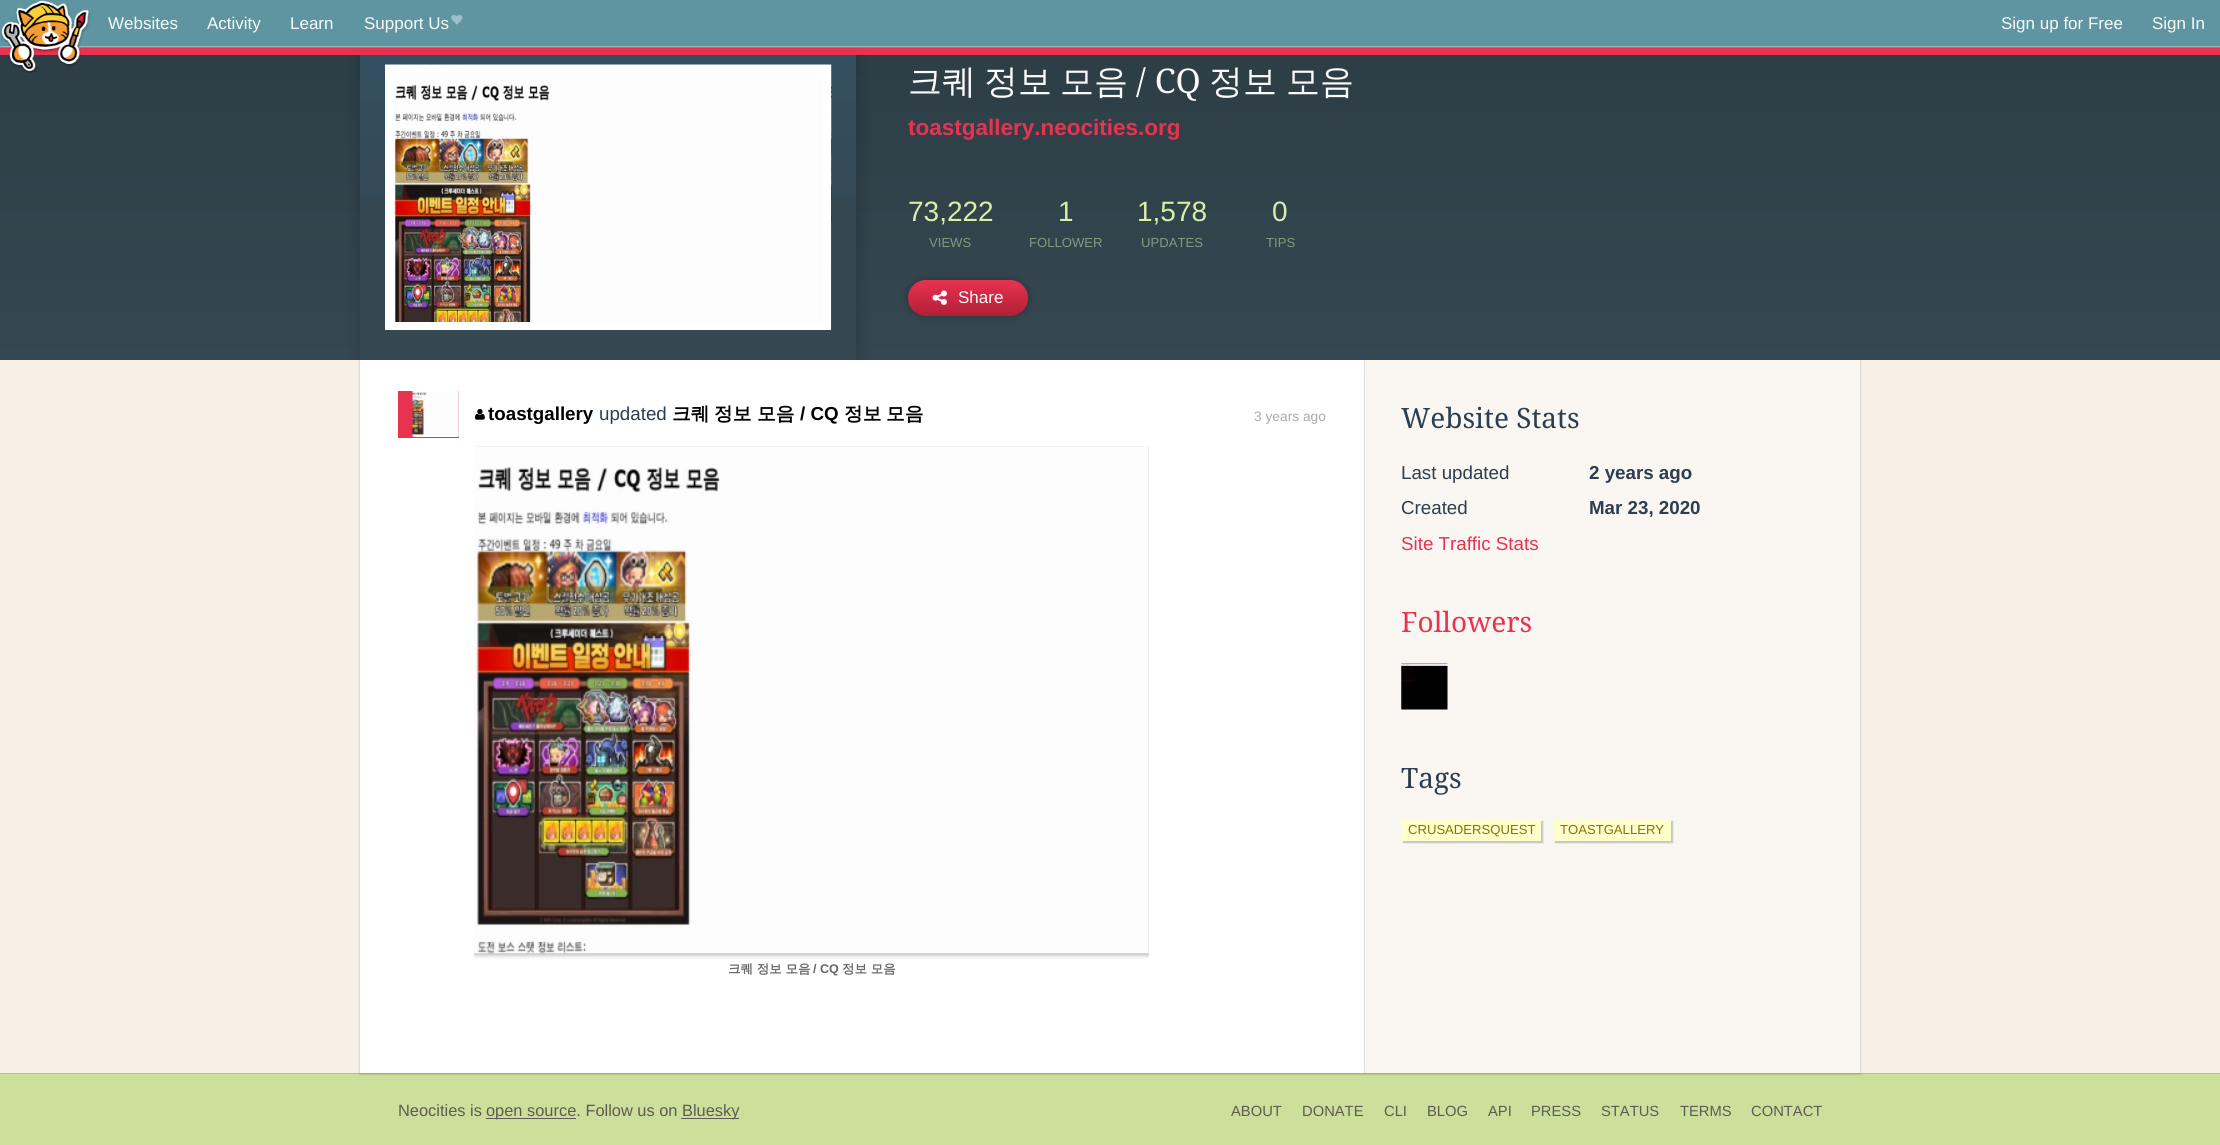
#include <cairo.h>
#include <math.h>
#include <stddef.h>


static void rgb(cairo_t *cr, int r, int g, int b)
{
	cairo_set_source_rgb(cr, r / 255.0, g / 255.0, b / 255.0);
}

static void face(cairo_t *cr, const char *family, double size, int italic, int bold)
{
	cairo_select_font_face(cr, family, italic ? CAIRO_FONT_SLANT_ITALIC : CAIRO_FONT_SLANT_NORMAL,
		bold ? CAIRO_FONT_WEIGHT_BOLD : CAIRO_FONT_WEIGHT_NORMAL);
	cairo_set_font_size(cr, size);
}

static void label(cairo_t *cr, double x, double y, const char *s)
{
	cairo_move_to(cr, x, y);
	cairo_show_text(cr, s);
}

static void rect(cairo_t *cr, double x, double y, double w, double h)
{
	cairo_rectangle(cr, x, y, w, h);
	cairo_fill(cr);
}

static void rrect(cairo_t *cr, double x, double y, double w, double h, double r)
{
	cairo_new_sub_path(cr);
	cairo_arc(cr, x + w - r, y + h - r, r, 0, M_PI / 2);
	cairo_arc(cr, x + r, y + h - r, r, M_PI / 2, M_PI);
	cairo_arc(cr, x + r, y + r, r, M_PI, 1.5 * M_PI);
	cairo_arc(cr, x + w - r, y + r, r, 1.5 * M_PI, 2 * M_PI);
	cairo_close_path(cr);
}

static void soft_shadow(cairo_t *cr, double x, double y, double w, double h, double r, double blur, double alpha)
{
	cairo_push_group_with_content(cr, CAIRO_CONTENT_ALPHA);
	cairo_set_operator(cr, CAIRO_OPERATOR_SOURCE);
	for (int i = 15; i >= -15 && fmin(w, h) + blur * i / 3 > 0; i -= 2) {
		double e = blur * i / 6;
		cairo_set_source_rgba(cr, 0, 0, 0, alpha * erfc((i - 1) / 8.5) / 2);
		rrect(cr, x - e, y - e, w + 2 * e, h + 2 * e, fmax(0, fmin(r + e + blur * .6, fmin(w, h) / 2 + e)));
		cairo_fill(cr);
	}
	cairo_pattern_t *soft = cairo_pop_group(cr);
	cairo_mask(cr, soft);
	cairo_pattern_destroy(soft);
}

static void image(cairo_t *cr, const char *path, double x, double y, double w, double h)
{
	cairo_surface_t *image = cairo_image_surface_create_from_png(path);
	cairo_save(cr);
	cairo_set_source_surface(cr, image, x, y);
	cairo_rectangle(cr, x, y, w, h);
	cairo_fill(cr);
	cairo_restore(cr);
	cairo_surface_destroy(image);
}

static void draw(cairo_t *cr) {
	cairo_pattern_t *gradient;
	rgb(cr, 204, 223, 155);
	cairo_paint(cr);
	rgb(cr, 246, 240, 230);
	rect(cr, 0, 360, 2220, 713);
	gradient = cairo_pattern_create_linear(1110, -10, 1110, 360);
	cairo_pattern_add_color_stop_rgba(gradient, 0, 0.169, 0.235, 0.263, 1);
	cairo_pattern_add_color_stop_rgba(gradient, 1, 0.208, 0.278, 0.318, 1);
	cairo_set_source(cr, gradient);
	cairo_pattern_destroy(gradient);
	rect(cr, 0, 55, 2220, 305);
	rgb(cr, 179, 195, 136);
	rect(cr, 0, 1073, 2220, 1);
	cairo_save(cr);
	cairo_rectangle(cr, 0, 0, 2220, 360);
	cairo_clip(cr);
	rgb(cr, 0, 0, 0);
	soft_shadow(cr, 359, 40, 501, 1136, 8, 7.5, 0.15);
	cairo_restore(cr);
	rgb(cr, 233, 50, 80);
	rect(cr, 0, 48, 2220, 7);
	rgb(cr, 94, 149, 161);
	rect(cr, 0, 0, 2220, 48);
	rgb(cr, 146, 180, 189);
	rect(cr, 0, 46, 2220, 1);
	image(cr, "image0.png", 1, 0, 90, 73);
	face(cr, "Liberation Sans", 17, 0, 0);
	rgb(cr, 250, 250, 250);
	label(cr, 108, 29, "Websites");
	label(cr, 207, 29, "Activity");
	label(cr, 290, 29, "Learn");
	label(cr, 364, 29, "Support Us");
	image(cr, "image1.png", 451, 15, 12, 10);
	label(cr, 2001, 29, "Sign up for Free");
	label(cr, 2152, 29, "Sign In");
	rgb(cr, 53, 71, 81);
	rect(cr, 360, 197, 496, 163);
	image(cr, "image2.png", 360, 55, 496, 142);
	image(cr, "image3.png", 385, 64, 447, 266);
	cairo_rectangle(cr, 389, 69, 438, 257);
	rgb(cr, 255, 255, 255);
	cairo_set_line_width(cr, 8);
	cairo_stroke(cr);
	face(cr, "WenQuanYi Zen Hei Medium", 34, 0, 0);
	rgb(cr, 250, 250, 250);
	label(cr, 908, 93, "크퀘");
	label(cr, 984, 93, "정보");
	label(cr, 1060, 93, "모음");
	face(cr, "Droid Serif", 34, 0, 0);
	label(cr, 1136, 93, "/ CQ");
	face(cr, "WenQuanYi Zen Hei Medium", 34, 0, 0);
	label(cr, 1209, 93, "정보");
	label(cr, 1286, 93, "모음");
	face(cr, "Liberation Sans", 22.5, 0, 1);
	rgb(cr, 233, 50, 80);
	label(cr, 908, 135, "toastgallery.neocities.org");
	face(cr, "Liberation Sans", 28, 0, 0);
	rgb(cr, 218, 238, 165);
	label(cr, 908, 221, "73,222");
	face(cr, "Liberation Sans", 13.1, 0, 0);
	rgb(cr, 132, 153, 126);
	label(cr, 929, 247, "VIEWS");
	face(cr, "Liberation Sans", 28, 0, 0);
	rgb(cr, 218, 238, 165);
	label(cr, 1058, 221, "1");
	face(cr, "Liberation Sans", 13.1, 0, 0);
	rgb(cr, 132, 153, 126);
	label(cr, 1029, 247, "FOLLOWER");
	face(cr, "Liberation Sans", 28, 0, 0);
	rgb(cr, 218, 238, 165);
	label(cr, 1137, 221, "1,578");
	face(cr, "Liberation Sans", 13.1, 0, 0);
	rgb(cr, 132, 153, 126);
	label(cr, 1141, 247, "UPDATES");
	face(cr, "Liberation Sans", 28, 0, 0);
	rgb(cr, 218, 238, 165);
	label(cr, 1272, 221, "0");
	face(cr, "Liberation Sans", 13.1, 0, 0);
	rgb(cr, 132, 153, 126);
	label(cr, 1266, 247, "TIPS");
	rgb(cr, 0, 0, 0);
	soft_shadow(cr, 908, 280, 120, 36, 18, 4, 0.25);
	gradient = cairo_pattern_create_linear(968, 280, 968, 316);
	cairo_pattern_add_color_stop_rgba(gradient, 0, 0.914, 0.196, 0.314, 1);
	cairo_pattern_add_color_stop_rgba(gradient, 1, 0.694, 0.122, 0.212, 1);
	cairo_set_source(cr, gradient);
	cairo_pattern_destroy(gradient);
	rrect(cr, 908, 280, 120, 36, 18);
	cairo_fill(cr);
	image(cr, "image4.png", 932, 290, 15, 15);
	face(cr, "Liberation Sans", 17, 0, 0);
	rgb(cr, 250, 250, 250);
	label(cr, 958, 303, "Share");
	rgb(cr, 0, 0, 0);
	soft_shadow(cr, 359, 360, 1502, 715, 0, 0.5, 0.1);
	rgb(cr, 250, 246, 241);
	rect(cr, 1365, 360, 495, 713);
	rgb(cr, 221, 221, 221);
	rect(cr, 1364, 360, 1, 713);
	rgb(cr, 255, 255, 255);
	rect(cr, 360, 360, 1004, 713);
	rgb(cr, 233, 50, 80);
	rect(cr, 398, 391, 61, 47);
	image(cr, "image5.png", 412, 391, 47, 46);
	image(cr, "image6.png", 475, 409, 10, 11);
	face(cr, "Liberation Sans", 18.75, 0, 1);
	rgb(cr, 0, 0, 0);
	label(cr, 488, 420, "toastgallery");
	face(cr, "Liberation Sans", 18.75, 0, 0);
	rgb(cr, 44, 62, 80);
	label(cr, 599, 420, "updated");
	face(cr, "WenQuanYi Zen Hei", 18.75, 0, 1);
	rgb(cr, 0, 0, 0);
	label(cr, 672, 420, "크퀘");
	label(cr, 714, 420, "정보");
	label(cr, 757, 420, "모음");
	face(cr, "Liberation Sans", 18.75, 0, 1);
	label(cr, 800, 420, "/ CQ");
	face(cr, "WenQuanYi Zen Hei", 18.75, 0, 1);
	label(cr, 844, 420, "정보");
	label(cr, 886, 420, "모음");
	face(cr, "Liberation Sans", 13.75, 0, 0);
	rgb(cr, 170, 170, 170);
	label(cr, 1254, 421, "3 years ago");
	cairo_save(cr);
	cairo_rectangle(cr, 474, 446, 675, 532);
	cairo_clip(cr);
	rgb(cr, 0, 0, 0);
	soft_shadow(cr, 474, 449, 675, 506, 0, 2.5, 0.3);
	cairo_restore(cr);
	image(cr, "image7.png", 474, 447, 675, 507);
	face(cr, "WenQuanYi Zen Hei", 12.5, 0, 1);
	rgb(cr, 102, 102, 102);
	label(cr, 728, 973, "크퀘 정보 모음");
	face(cr, "Liberation Sans", 12.5, 0, 1);
	label(cr, 813, 973, "/ CQ");
	face(cr, "WenQuanYi Zen Hei", 12.5, 0, 1);
	label(cr, 842, 973, "정보 모음");
	face(cr, "Droid Serif", 28, 0, 0);
	rgb(cr, 44, 62, 80);
	label(cr, 1401, 428, "Website Stats");
	face(cr, "Liberation Sans", 18.75, 0, 0);
	label(cr, 1401, 479, "Last updated");
	face(cr, "Liberation Sans", 18.75, 0, 1);
	label(cr, 1589, 479, "2 years ago");
	face(cr, "Liberation Sans", 18.75, 0, 0);
	label(cr, 1401, 514, "Created");
	face(cr, "Liberation Sans", 18.75, 0, 1);
	label(cr, 1589, 514, "Mar 23, 2020");
	face(cr, "Liberation Sans", 18.75, 0, 0);
	rgb(cr, 233, 50, 80);
	label(cr, 1401, 550, "Site Traffic Stats");
	face(cr, "Droid Serif", 28, 0, 0);
	label(cr, 1401, 632, "Followers");
	image(cr, "image8.png", 1401, 663, 47, 47);
	rgb(cr, 44, 62, 80);
	label(cr, 1401, 788, "Tags");
	rgb(cr, 0, 0, 0);
	soft_shadow(cr, 1403, 821, 140, 22, 0, 0.5, 0.2);
	rgb(cr, 255, 255, 204);
	rect(cr, 1401, 820, 140, 21);
	face(cr, "Liberation Sans", 13.1, 0, 0);
	rgb(cr, 137, 113, 6);
	label(cr, 1408, 834, "CRUSADERSQUEST");
	rgb(cr, 0, 0, 0);
	soft_shadow(cr, 1555, 821, 118, 22, 0, 0.5, 0.2);
	rgb(cr, 255, 255, 204);
	rect(cr, 1554, 820, 117, 21);
	rgb(cr, 137, 113, 6);
	label(cr, 1560, 834, "TOASTGALLERY");
	face(cr, "Liberation Sans", 16.4, 0, 0);
	rgb(cr, 94, 91, 86);
	label(cr, 398, 1116, "Neocities is");
	rect(cr, 486, 1118, 90, 1);
	label(cr, 486, 1116, "open source. Follow us on");
	rect(cr, 681, 1118, 58, 1);
	label(cr, 682, 1116, "Bluesky");
	face(cr, "Liberation Sans", 14.75, 0, 0);
	label(cr, 1231, 1116, "ABOUT");
	label(cr, 1302, 1116, "DONATE");
	label(cr, 1384, 1116, "CLI");
	label(cr, 1427, 1116, "BLOG");
	label(cr, 1488, 1116, "API");
	label(cr, 1531, 1116, "PRESS");
	label(cr, 1601, 1116, "STATUS");
	label(cr, 1680, 1116, "TERMS");
	label(cr, 1751, 1116, "CONTACT");
}

int main(void) {
	cairo_surface_t *surface = cairo_image_surface_create(CAIRO_FORMAT_RGB24, 2220, 1145);
	cairo_t *cr = cairo_create(surface);
	cairo_font_options_t *options = cairo_font_options_create();
	cairo_font_options_set_hint_metrics(options, CAIRO_HINT_METRICS_OFF);
	cairo_font_options_set_hint_style(options, CAIRO_HINT_STYLE_NONE);
	cairo_set_font_options(cr, options);
	cairo_set_miter_limit(cr, 4);
	draw(cr);
	cairo_surface_write_to_png(surface, "render.png");
	cairo_font_options_destroy(options);
	cairo_destroy(cr);
	cairo_surface_destroy(surface);
	return 0;
}
